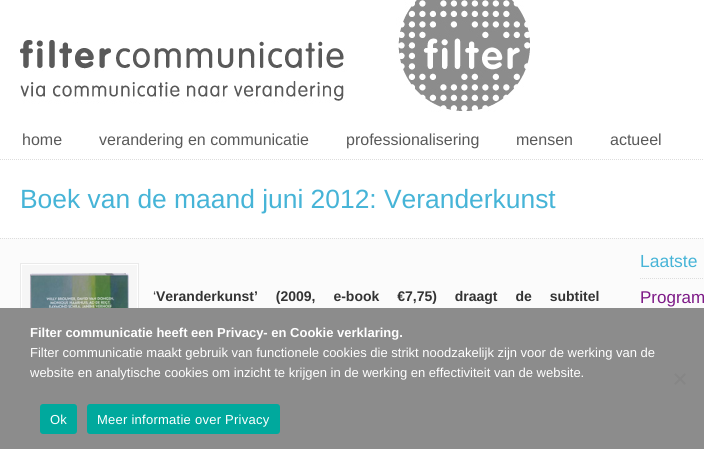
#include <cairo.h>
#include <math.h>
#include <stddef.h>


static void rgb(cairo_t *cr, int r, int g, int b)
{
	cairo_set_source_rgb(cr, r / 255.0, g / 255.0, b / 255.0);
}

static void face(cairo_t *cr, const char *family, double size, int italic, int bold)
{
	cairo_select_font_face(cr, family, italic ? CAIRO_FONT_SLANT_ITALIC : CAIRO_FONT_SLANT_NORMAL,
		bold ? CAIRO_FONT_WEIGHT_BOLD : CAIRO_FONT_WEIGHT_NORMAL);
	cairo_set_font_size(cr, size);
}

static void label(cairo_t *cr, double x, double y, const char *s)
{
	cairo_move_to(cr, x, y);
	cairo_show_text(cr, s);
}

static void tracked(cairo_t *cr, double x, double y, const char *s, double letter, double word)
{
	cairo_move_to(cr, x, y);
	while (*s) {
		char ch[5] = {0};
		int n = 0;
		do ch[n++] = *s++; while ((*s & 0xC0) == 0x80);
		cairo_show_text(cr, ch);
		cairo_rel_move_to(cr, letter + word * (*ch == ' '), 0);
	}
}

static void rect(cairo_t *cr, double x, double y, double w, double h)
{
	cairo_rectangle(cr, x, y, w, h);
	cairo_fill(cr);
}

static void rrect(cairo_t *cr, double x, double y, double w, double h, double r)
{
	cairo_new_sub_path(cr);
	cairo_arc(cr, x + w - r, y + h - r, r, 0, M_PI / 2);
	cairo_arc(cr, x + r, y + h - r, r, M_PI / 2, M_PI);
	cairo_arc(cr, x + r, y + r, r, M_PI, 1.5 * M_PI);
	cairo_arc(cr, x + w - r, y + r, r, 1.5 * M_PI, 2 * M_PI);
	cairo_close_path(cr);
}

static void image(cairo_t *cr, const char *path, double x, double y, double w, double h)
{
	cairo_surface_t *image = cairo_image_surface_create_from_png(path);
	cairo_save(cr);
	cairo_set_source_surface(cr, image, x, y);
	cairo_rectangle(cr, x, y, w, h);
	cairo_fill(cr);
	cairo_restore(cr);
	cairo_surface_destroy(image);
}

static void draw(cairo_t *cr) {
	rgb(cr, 251, 251, 251);
	cairo_paint(cr);
	rgb(cr, 255, 255, 255);
	rect(cr, 0, 0, 704, 238);
	image(cr, "image0.png", 20, 0, 510, 116);
	cairo_new_path(cr);
	cairo_move_to(cr, 0, 159.5);
	cairo_line_to(cr, 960, 159.5);
	rgb(cr, 221, 221, 221);
	cairo_set_line_width(cr, 1);
	cairo_set_dash(cr, (double[]){1, 1}, 2, 0);
	cairo_stroke(cr);
	face(cr, "Liberation Sans", 16, 0, 0);
	rgb(cr, 89, 89, 89);
	label(cr, 22, 145, "home");
	label(cr, 99, 145, "verandering en communicatie");
	label(cr, 346, 145, "professionalisering");
	label(cr, 516, 145, "mensen");
	label(cr, 610, 145, "actueel");
	face(cr, "Liberation Sans", 26.4, 0, 0);
	rgb(cr, 70, 180, 215);
	label(cr, 20, 208, "Boek van de maand juni 2012: Veranderkunst");
	cairo_new_path(cr);
	cairo_move_to(cr, 0, 238.5);
	cairo_line_to(cr, 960, 238.5);
	rgb(cr, 221, 221, 221);
	cairo_stroke(cr);
	cairo_rectangle(cr, 20.5, 263.5, 118, 169);
	rgb(cr, 234, 234, 234);
	cairo_set_dash(cr, NULL, 0, 0);
	cairo_stroke(cr);
	rgb(cr, 246, 246, 246);
	rect(cr, 22, 265, 115, 43);
	cairo_rectangle(cr, 21.5, 264.5, 116, 167);
	rgb(cr, 255, 255, 255);
	cairo_stroke(cr);
	image(cr, "image1.png", 30, 273, 99, 35);
	face(cr, "Liberation Sans", 14, 0, 0);
	rgb(cr, 51, 51, 51);
	label(cr, 153, 301, "‘");
	face(cr, "Liberation Sans", 14, 0, 1);
	tracked(cr, 156, 301, "Veranderkunst’ (2009, e-book €7,75) draagt de subtitel", 0, 14);
	cairo_new_path(cr);
	cairo_move_to(cr, 640, 278.5);
	cairo_line_to(cr, 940, 278.5);
	rgb(cr, 221, 221, 221);
	cairo_set_dash(cr, (double[]){1, 1}, 2, 0);
	cairo_stroke(cr);
	face(cr, "Liberation Sans", 17.5, 0, 0);
	rgb(cr, 70, 180, 215);
	label(cr, 640, 267, "Laatste");
	face(cr, "Liberation Sans", 17, 0, 0);
	rgb(cr, 125, 25, 135);
	label(cr, 640, 303, "Program");
	rgb(cr, 140, 140, 140);
	rect(cr, 0, 308, 704, 141);
	face(cr, "Liberation Sans", 13, 0, 1);
	rgb(cr, 255, 255, 255);
	label(cr, 30, 337, "Filter communicatie heeft een Privacy- en Cookie verklaring.");
	face(cr, "Liberation Sans", 13, 0, 0);
	label(cr, 30, 357, "Filter communicatie maakt gebruik van functionele cookies die strikt noodzakelijk zijn voor de werking van de");
	label(cr, 30, 377, "website en analytische cookies om inzicht te krijgen in de werking en effectiviteit van de website.");
	rgb(cr, 134, 134, 134);
	cairo_new_path(cr);
	cairo_move_to(cr, 684.5, 373);
	cairo_line_to(cr, 686, 374.5);
	cairo_line_to(cr, 675.5, 385);
	cairo_line_to(cr, 674, 383.5);
	cairo_close_path(cr);
	cairo_fill(cr);
	cairo_new_path(cr);
	cairo_move_to(cr, 674, 374.5);
	cairo_line_to(cr, 675.5, 373);
	cairo_line_to(cr, 686, 383.5);
	cairo_line_to(cr, 684.5, 385);
	cairo_close_path(cr);
	cairo_fill(cr);
	rgb(cr, 0, 169, 157);
	rrect(cr, 40, 404, 37, 30, 3);
	cairo_fill(cr);
	rgb(cr, 255, 255, 255);
	tracked(cr, 50, 424, "Ok", 0.25, 0);
	rgb(cr, 0, 169, 157);
	rrect(cr, 87, 404, 193, 30, 3);
	cairo_fill(cr);
	rgb(cr, 255, 255, 255);
	tracked(cr, 97, 424, "Meer informatie over Privacy", 0.25, 0);
}

int main(void) {
	cairo_surface_t *surface = cairo_image_surface_create(CAIRO_FORMAT_RGB24, 704, 449);
	cairo_t *cr = cairo_create(surface);
	cairo_font_options_t *options = cairo_font_options_create();
	cairo_font_options_set_hint_metrics(options, CAIRO_HINT_METRICS_OFF);
	cairo_font_options_set_hint_style(options, CAIRO_HINT_STYLE_NONE);
	cairo_set_font_options(cr, options);
	cairo_set_miter_limit(cr, 4);
	draw(cr);
	cairo_surface_write_to_png(surface, "render.png");
	cairo_font_options_destroy(options);
	cairo_destroy(cr);
	cairo_surface_destroy(surface);
	return 0;
}
